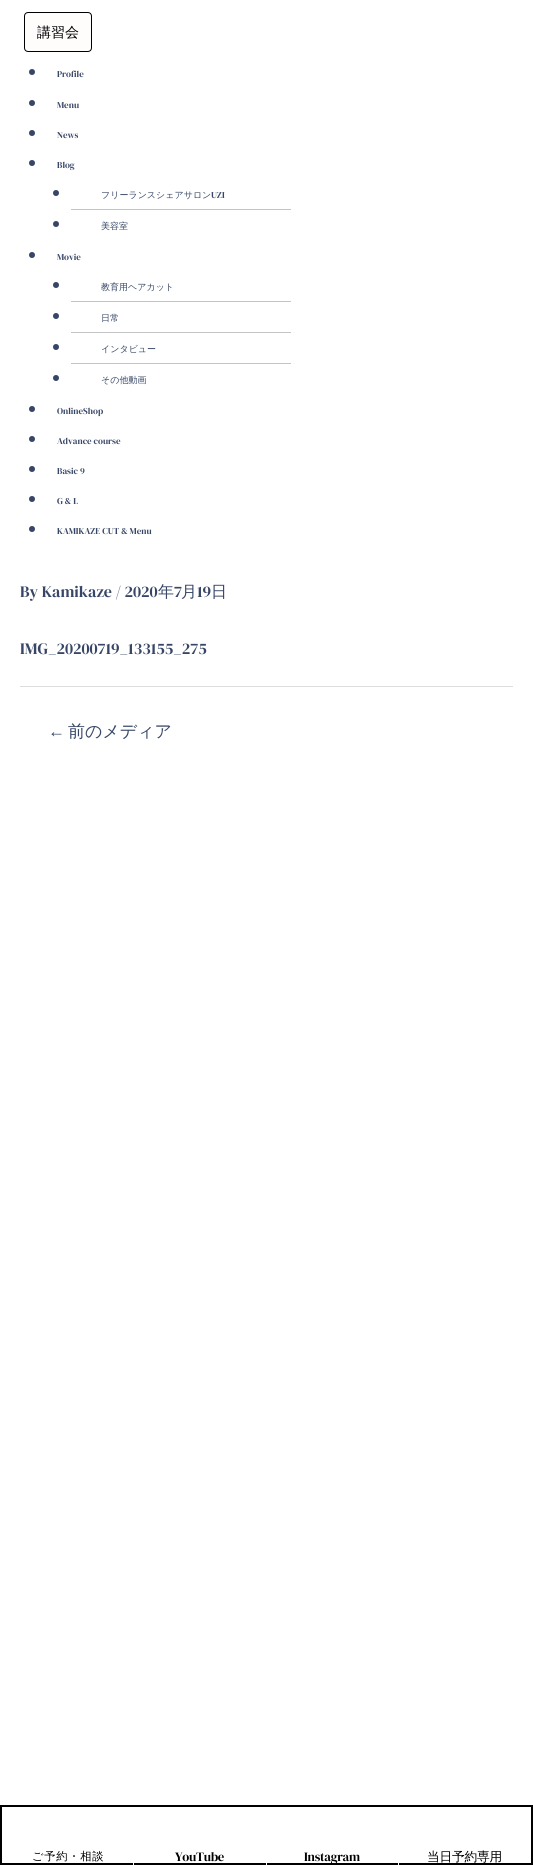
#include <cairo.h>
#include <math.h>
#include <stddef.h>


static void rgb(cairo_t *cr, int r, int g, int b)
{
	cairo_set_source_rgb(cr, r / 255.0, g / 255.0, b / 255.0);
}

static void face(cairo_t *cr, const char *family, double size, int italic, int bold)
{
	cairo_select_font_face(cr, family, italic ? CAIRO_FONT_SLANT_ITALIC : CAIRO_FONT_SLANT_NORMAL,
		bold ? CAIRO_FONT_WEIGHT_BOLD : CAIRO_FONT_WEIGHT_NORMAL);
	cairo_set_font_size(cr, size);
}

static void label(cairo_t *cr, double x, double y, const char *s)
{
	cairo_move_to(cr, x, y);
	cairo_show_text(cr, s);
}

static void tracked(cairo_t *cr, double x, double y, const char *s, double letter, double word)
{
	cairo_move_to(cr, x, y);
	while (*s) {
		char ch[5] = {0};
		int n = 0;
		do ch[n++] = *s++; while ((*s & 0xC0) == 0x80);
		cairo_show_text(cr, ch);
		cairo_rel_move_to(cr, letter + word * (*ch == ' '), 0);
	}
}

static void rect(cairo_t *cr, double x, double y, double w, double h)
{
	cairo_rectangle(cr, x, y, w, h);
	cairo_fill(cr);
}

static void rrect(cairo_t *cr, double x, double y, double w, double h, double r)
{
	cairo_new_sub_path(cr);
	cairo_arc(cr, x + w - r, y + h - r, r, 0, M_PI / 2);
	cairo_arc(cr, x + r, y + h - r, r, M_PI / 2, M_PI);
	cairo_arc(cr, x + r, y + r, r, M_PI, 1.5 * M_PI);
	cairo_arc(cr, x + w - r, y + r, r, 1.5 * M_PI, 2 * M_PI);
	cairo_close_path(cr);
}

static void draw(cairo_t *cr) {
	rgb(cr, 255, 255, 255);
	cairo_paint(cr);
	rgb(cr, 255, 252, 252);
	rrect(cr, 24.5, 12.5, 67, 39, 3.5);
	cairo_fill_preserve(cr);
	rgb(cr, 0, 0, 0);
	cairo_set_line_width(cr, 1);
	cairo_stroke(cr);
	face(cr, "WenQuanYi Zen Hei Medium", 14, 0, 0);
	label(cr, 37, 37, "講習会");
	rgb(cr, 55, 70, 102);
	cairo_new_path(cr);
	cairo_arc(cr, 32, 72, 3, 0, 2 * M_PI);
	cairo_fill(cr);
	face(cr, "DM Serif Display", 9, 0, 0);
	label(cr, 57, 77, "Profile");
	cairo_new_path(cr);
	cairo_arc(cr, 32, 103, 3, 0, 2 * M_PI);
	cairo_fill(cr);
	label(cr, 57, 108, "Menu");
	cairo_new_path(cr);
	cairo_arc(cr, 32, 133, 3, 0, 2 * M_PI);
	cairo_fill(cr);
	label(cr, 57, 138, "News");
	cairo_new_path(cr);
	cairo_arc(cr, 32, 163, 3, 0, 2 * M_PI);
	cairo_fill(cr);
	label(cr, 57, 168, "Blog");
	rgb(cr, 196, 196, 196);
	rect(cr, 71, 209, 220, 1);
	rgb(cr, 55, 70, 102);
	cairo_new_path(cr);
	cairo_arc(cr, 56, 193, 3, 0, 2 * M_PI);
	cairo_fill(cr);
	face(cr, "WenQuanYi Zen Hei Medium", 9, 0, 0);
	label(cr, 101, 198, "フリーランスシェアサロン");
	face(cr, "DM Serif Display", 9, 0, 0);
	label(cr, 211, 198, "UZI");
	cairo_new_path(cr);
	cairo_arc(cr, 56, 224, 3, 0, 2 * M_PI);
	cairo_fill(cr);
	face(cr, "WenQuanYi Zen Hei Medium", 9, 0, 0);
	label(cr, 101, 229, "美容室");
	cairo_new_path(cr);
	cairo_arc(cr, 32, 255, 3, 0, 2 * M_PI);
	cairo_fill(cr);
	face(cr, "DM Serif Display", 9, 0, 0);
	label(cr, 57, 260, "Movie");
	rgb(cr, 196, 196, 196);
	rect(cr, 71, 301, 220, 1);
	rgb(cr, 55, 70, 102);
	cairo_new_path(cr);
	cairo_arc(cr, 56, 285, 3, 0, 2 * M_PI);
	cairo_fill(cr);
	face(cr, "WenQuanYi Zen Hei Medium", 9, 0, 0);
	label(cr, 101, 290, "教育用ヘアカット");
	rgb(cr, 196, 196, 196);
	rect(cr, 71, 332, 220, 1);
	rgb(cr, 55, 70, 102);
	cairo_new_path(cr);
	cairo_arc(cr, 56, 316, 3, 0, 2 * M_PI);
	cairo_fill(cr);
	label(cr, 101, 321, "日常");
	rgb(cr, 196, 196, 196);
	rect(cr, 71, 363, 220, 1);
	rgb(cr, 55, 70, 102);
	cairo_new_path(cr);
	cairo_arc(cr, 56, 347, 3, 0, 2 * M_PI);
	cairo_fill(cr);
	label(cr, 101, 352, "インタビュー");
	cairo_new_path(cr);
	cairo_arc(cr, 56, 378, 3, 0, 2 * M_PI);
	cairo_fill(cr);
	label(cr, 101, 383, "その他動画");
	cairo_new_path(cr);
	cairo_arc(cr, 32, 409, 3, 0, 2 * M_PI);
	cairo_fill(cr);
	face(cr, "DM Serif Display", 9, 0, 0);
	label(cr, 57, 414, "OnlineShop");
	cairo_new_path(cr);
	cairo_arc(cr, 32, 439, 3, 0, 2 * M_PI);
	cairo_fill(cr);
	label(cr, 57, 444, "Advance course");
	cairo_new_path(cr);
	cairo_arc(cr, 32, 469, 3, 0, 2 * M_PI);
	cairo_fill(cr);
	label(cr, 57, 474, "Basic 9");
	cairo_new_path(cr);
	cairo_arc(cr, 32, 499, 3, 0, 2 * M_PI);
	cairo_fill(cr);
	label(cr, 57, 504, "G & L");
	cairo_new_path(cr);
	cairo_arc(cr, 32, 529, 3, 0, 2 * M_PI);
	cairo_fill(cr);
	label(cr, 57, 534, "KAMIKAZE CUT & Menu");
	face(cr, "DM Serif Display", 16, 0, 0);
	label(cr, 20, 597, "By Kamikaze / 2020");
	face(cr, "WenQuanYi Zen Hei Medium", 16, 0, 0);
	label(cr, 158, 597, "年");
	face(cr, "DM Serif Display", 16, 0, 0);
	label(cr, 174, 597, "7");
	face(cr, "WenQuanYi Zen Hei Medium", 16, 0, 0);
	label(cr, 181, 597, "月");
	face(cr, "DM Serif Display", 16, 0, 0);
	label(cr, 197, 597, "19");
	face(cr, "WenQuanYi Zen Hei Medium", 16, 0, 0);
	label(cr, 211, 597, "日");
	face(cr, "DM Serif Display", 16, 0, 0);
	label(cr, 20, 654, "IMG_20200719_133155_275");
	rgb(cr, 221, 221, 221);
	rect(cr, 20, 686, 493, 1);
	face(cr, "Liberation Serif", 17, 0, 0);
	rgb(cr, 55, 70, 102);
	label(cr, 48, 737, "←");
	face(cr, "WenQuanYi Zen Hei Medium", 17, 0, 0);
	label(cr, 68, 737, "前のメディア");
	cairo_rectangle(cr, 1, 1806, 531, 58);
	rgb(cr, 0, 0, 0);
	cairo_set_line_width(cr, 2);
	cairo_stroke(cr);
	rgb(cr, 255, 255, 255);
	rect(cr, 133, 1863, 1, 2);
	face(cr, "WenQuanYi Zen Hei Medium", 11.25, 0, 0);
	rgb(cr, 0, 0, 0);
	tracked(cr, 32, 1860, "ご予約・相談", 0.75, 0);
	rgb(cr, 255, 255, 255);
	rect(cr, 266, 1863, 1, 2);
	face(cr, "DM Serif Display", 12.75, 0, 0);
	rgb(cr, 0, 0, 0);
	tracked(cr, 175, 1861, "YouTube", -0.25, 0);
	rgb(cr, 255, 255, 255);
	rect(cr, 398, 1863, 1, 2);
	rgb(cr, 0, 0, 0);
	tracked(cr, 304, 1861, "Instagram", -0.25, 0);
	face(cr, "WenQuanYi Zen Hei Medium", 12.75, 0, 0);
	tracked(cr, 427, 1861, "当日予約専用", -0.25, 0);
}

int main(void) {
	cairo_surface_t *surface = cairo_image_surface_create(CAIRO_FORMAT_RGB24, 533, 1865);
	cairo_t *cr = cairo_create(surface);
	cairo_font_options_t *options = cairo_font_options_create();
	cairo_font_options_set_hint_metrics(options, CAIRO_HINT_METRICS_OFF);
	cairo_font_options_set_hint_style(options, CAIRO_HINT_STYLE_NONE);
	cairo_set_font_options(cr, options);
	cairo_set_miter_limit(cr, 4);
	draw(cr);
	cairo_surface_write_to_png(surface, "render.png");
	cairo_font_options_destroy(options);
	cairo_destroy(cr);
	cairo_surface_destroy(surface);
	return 0;
}
